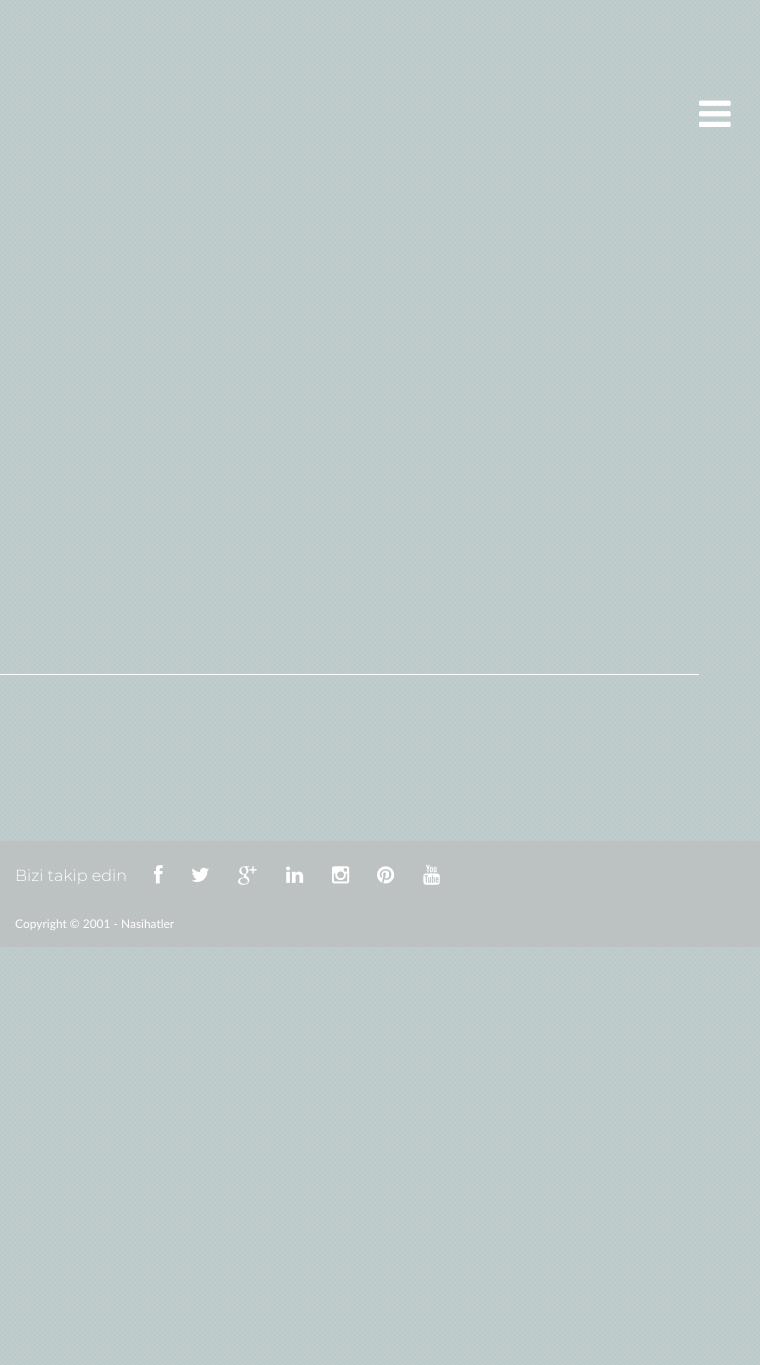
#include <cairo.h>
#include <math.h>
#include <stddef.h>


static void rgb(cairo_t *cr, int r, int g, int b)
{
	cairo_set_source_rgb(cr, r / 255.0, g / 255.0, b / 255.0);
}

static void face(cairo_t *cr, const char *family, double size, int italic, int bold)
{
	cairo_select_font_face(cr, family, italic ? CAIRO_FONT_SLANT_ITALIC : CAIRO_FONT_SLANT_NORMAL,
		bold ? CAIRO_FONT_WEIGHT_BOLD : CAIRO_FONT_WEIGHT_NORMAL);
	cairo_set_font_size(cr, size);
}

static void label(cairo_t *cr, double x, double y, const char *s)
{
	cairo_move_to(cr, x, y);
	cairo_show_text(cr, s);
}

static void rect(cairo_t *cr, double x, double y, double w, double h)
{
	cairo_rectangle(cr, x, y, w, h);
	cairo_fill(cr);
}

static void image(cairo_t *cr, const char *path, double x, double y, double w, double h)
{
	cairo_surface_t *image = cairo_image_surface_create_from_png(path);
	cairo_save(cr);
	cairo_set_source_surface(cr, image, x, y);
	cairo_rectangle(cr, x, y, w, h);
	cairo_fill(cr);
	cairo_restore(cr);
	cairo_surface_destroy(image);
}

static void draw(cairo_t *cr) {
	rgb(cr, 190, 206, 206);
	cairo_paint(cr);
	image(cr, "image0.png", 0, 0, 760, 1365);
	image(cr, "image1.png", 699, 100, 32, 27);
	rgb(cr, 255, 255, 255);
	rect(cr, 0, 674, 699, 1);
	cairo_set_source_rgba(cr, 0.741, 0.741, 0.741, 0.6);
	rect(cr, 0, 841, 760, 106);
	face(cr, "Montserrat Light", 16, 0, 0);
	rgb(cr, 255, 255, 255);
	label(cr, 15, 881, "Bizi takip edin");
	image(cr, "image2.png", 154, 865, 9, 19);
	image(cr, "image3.png", 191, 867, 18, 15);
	image(cr, "image4.png", 238, 866, 19, 19);
	image(cr, "image5.png", 286, 866, 18, 17);
	image(cr, "image6.png", 332, 866, 18, 18);
	image(cr, "image7.png", 377, 866, 18, 18);
	image(cr, "image8.png", 423, 864, 17, 21);
	face(cr, "Lato", 11.9, 0, 0);
	label(cr, 15, 928, "Copyright © 2001 - Nasihatler");
}

int main(void) {
	cairo_surface_t *surface = cairo_image_surface_create(CAIRO_FORMAT_RGB24, 760, 1365);
	cairo_t *cr = cairo_create(surface);
	cairo_font_options_t *options = cairo_font_options_create();
	cairo_font_options_set_hint_metrics(options, CAIRO_HINT_METRICS_OFF);
	cairo_font_options_set_hint_style(options, CAIRO_HINT_STYLE_NONE);
	cairo_set_font_options(cr, options);
	cairo_set_miter_limit(cr, 4);
	draw(cr);
	cairo_surface_write_to_png(surface, "render.png");
	cairo_font_options_destroy(options);
	cairo_destroy(cr);
	cairo_surface_destroy(surface);
	return 0;
}
